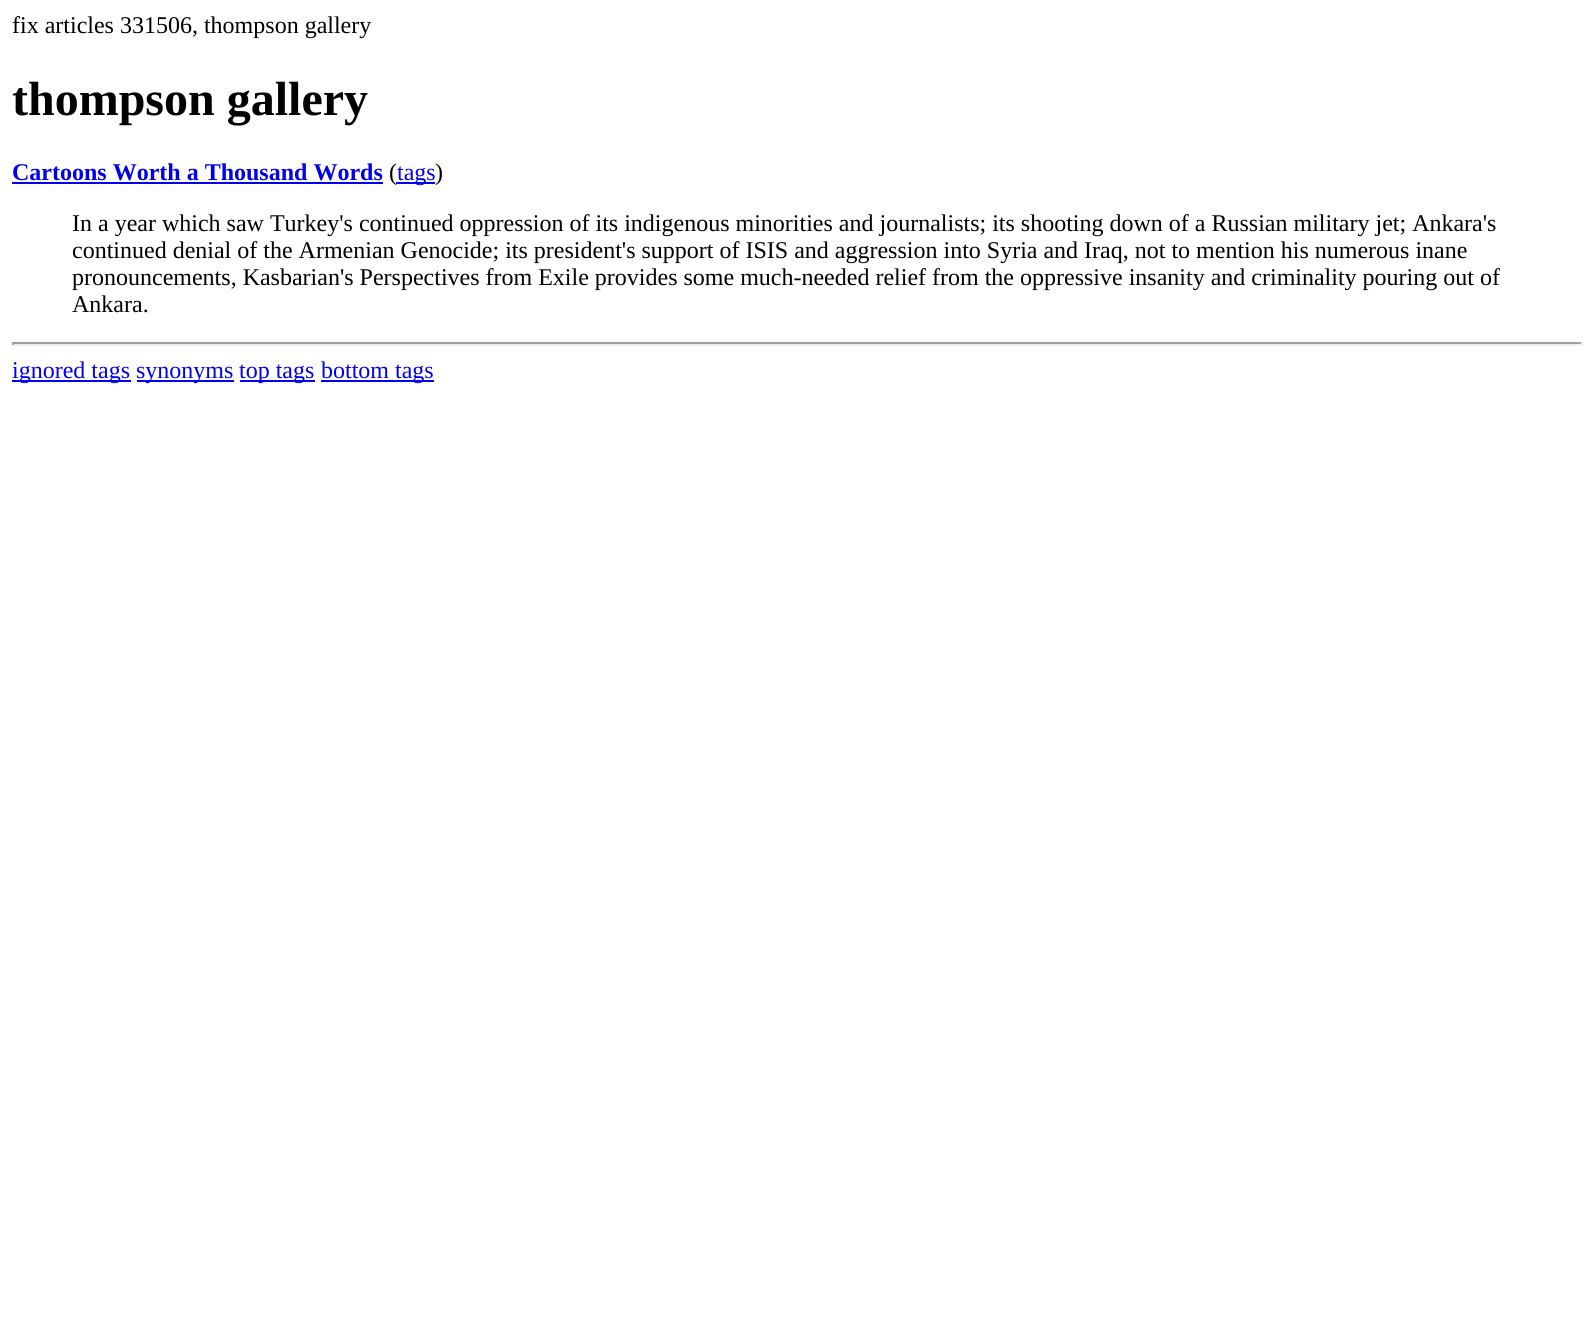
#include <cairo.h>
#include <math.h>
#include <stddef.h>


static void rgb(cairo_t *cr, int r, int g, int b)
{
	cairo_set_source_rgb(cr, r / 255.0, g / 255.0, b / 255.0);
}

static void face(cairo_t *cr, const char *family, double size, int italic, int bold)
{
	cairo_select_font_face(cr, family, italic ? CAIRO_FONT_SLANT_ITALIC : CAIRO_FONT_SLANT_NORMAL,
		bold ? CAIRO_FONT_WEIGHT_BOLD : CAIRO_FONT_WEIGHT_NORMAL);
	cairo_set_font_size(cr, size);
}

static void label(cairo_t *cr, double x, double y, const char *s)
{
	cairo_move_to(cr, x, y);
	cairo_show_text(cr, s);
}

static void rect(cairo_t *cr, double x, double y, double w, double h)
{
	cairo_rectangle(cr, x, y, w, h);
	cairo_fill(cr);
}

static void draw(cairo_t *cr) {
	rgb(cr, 255, 255, 255);
	cairo_paint(cr);
	face(cr, "Liberation Serif", 24, 0, 0);
	rgb(cr, 0, 0, 0);
	label(cr, 12, 33, "fix articles 331506, thompson gallery");
	face(cr, "Liberation Serif", 48, 0, 1);
	label(cr, 12, 115, "thompson gallery");
	face(cr, "Liberation Serif", 24, 0, 1);
	rgb(cr, 0, 0, 238);
	label(cr, 12, 180, "Cartoons Worth a Thousand Words");
	rect(cr, 12, 182, 371, 2);
	face(cr, "Liberation Serif", 24, 0, 0);
	rgb(cr, 0, 0, 0);
	label(cr, 389, 180, "(");
	rgb(cr, 0, 0, 238);
	rect(cr, 396, 182, 39, 2);
	label(cr, 397, 180, "tags");
	rgb(cr, 0, 0, 0);
	label(cr, 435, 180, ")");
	label(cr, 72, 231, "In a year which saw Turkey's continued oppression of its indigenous minorities and journalists; its shooting down of a Russian military jet; Ankara's");
	label(cr, 72, 258, "continued denial of the Armenian Genocide; its president's support of ISIS and aggression into Syria and Iraq, not to mention his numerous inane");
	label(cr, 72, 285, "pronouncements, Kasbarian's Perspectives from Exile provides some much-needed relief from the oppressive insanity and criminality pouring out of");
	label(cr, 72, 312, "Ankara.");
	rgb(cr, 159, 159, 159);
	rect(cr, 12, 342, 1571, 2);
	rgb(cr, 238, 238, 238);
	rect(cr, 1581, 342, 2, 3);
	rect(cr, 12, 344, 1571, 2);
	rgb(cr, 159, 159, 159);
	rect(cr, 12, 342, 2, 3);
	rgb(cr, 0, 0, 238);
	rect(cr, 12, 380, 119, 2);
	label(cr, 12, 378, "ignored tags");
	rect(cr, 137, 380, 97, 2);
	label(cr, 136, 378, "synonyms");
	rect(cr, 240, 380, 75, 2);
	label(cr, 239, 378, "top tags");
	rect(cr, 321, 380, 113, 2);
	label(cr, 321, 378, "bottom tags");
}

int main(void) {
	cairo_surface_t *surface = cairo_image_surface_create(CAIRO_FORMAT_RGB24, 1594, 1321);
	cairo_t *cr = cairo_create(surface);
	cairo_font_options_t *options = cairo_font_options_create();
	cairo_font_options_set_hint_metrics(options, CAIRO_HINT_METRICS_OFF);
	cairo_font_options_set_hint_style(options, CAIRO_HINT_STYLE_NONE);
	cairo_set_font_options(cr, options);
	cairo_set_miter_limit(cr, 4);
	draw(cr);
	cairo_surface_write_to_png(surface, "render.png");
	cairo_font_options_destroy(options);
	cairo_destroy(cr);
	cairo_surface_destroy(surface);
	return 0;
}
